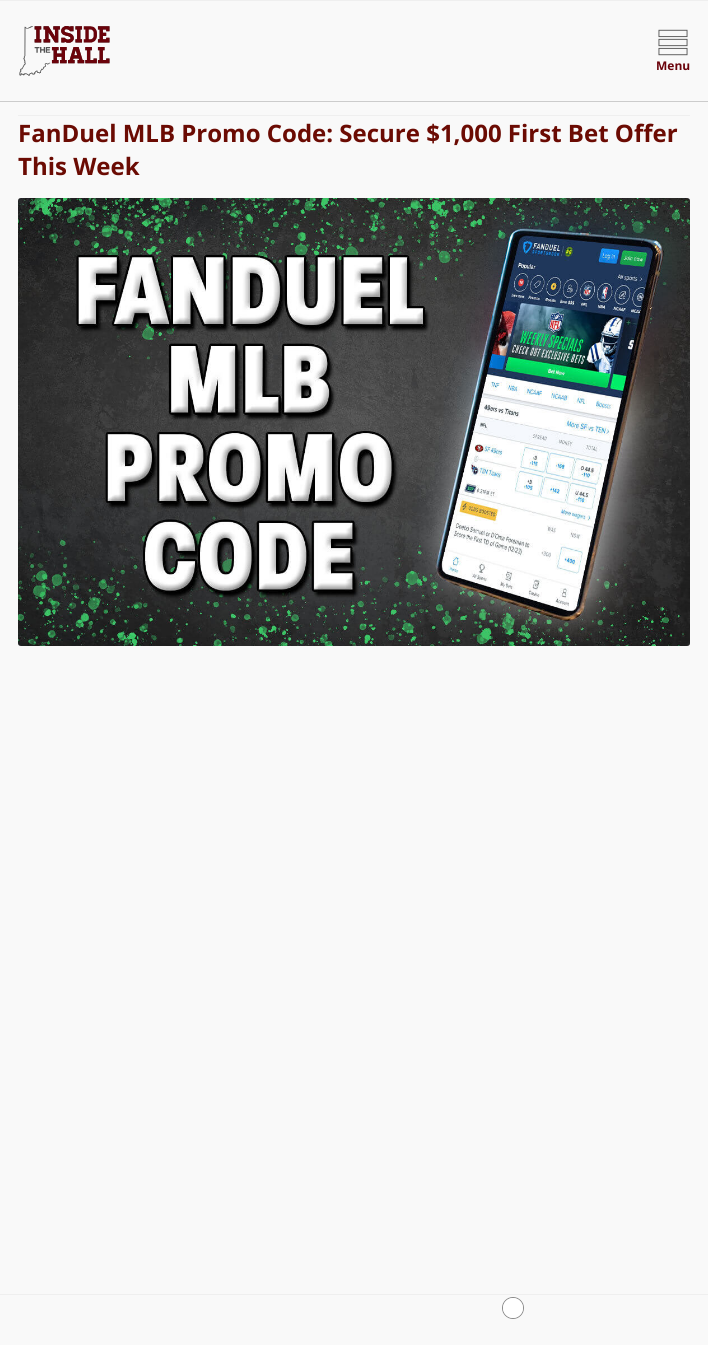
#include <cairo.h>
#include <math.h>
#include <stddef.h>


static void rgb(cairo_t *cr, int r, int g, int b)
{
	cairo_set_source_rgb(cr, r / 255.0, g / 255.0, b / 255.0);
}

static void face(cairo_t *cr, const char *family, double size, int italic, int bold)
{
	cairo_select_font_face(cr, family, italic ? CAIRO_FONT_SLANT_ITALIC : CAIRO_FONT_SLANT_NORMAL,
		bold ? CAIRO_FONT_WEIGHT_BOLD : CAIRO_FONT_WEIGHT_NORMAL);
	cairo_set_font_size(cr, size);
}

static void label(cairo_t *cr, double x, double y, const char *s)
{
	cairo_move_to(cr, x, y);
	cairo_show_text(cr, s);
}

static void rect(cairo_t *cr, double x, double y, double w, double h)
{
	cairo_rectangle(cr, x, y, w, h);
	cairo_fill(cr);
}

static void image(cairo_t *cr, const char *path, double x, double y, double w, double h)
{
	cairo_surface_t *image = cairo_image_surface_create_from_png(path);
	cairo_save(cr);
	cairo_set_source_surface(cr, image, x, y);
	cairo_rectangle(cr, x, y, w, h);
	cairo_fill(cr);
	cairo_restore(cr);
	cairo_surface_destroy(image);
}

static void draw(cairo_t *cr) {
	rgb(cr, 249, 249, 249);
	cairo_paint(cr);
	rgb(cr, 239, 239, 239);
	rect(cr, 0, 0, 708, 1);
	rgb(cr, 204, 204, 204);
	rect(cr, 0, 101, 708, 1);
	image(cr, "image0.png", 19, 26, 91, 50);
	image(cr, "image1.png", 658, 29, 30, 27);
	face(cr, "Open Sans", 12, 0, 1);
	rgb(cr, 107, 3, 11);
	label(cr, 656, 70, "Menu");
	rgb(cr, 239, 239, 239);
	rect(cr, 18, 115, 672, 1);
	face(cr, "Open Sans", 24, 0, 1);
	rgb(cr, 107, 11, 3);
	label(cr, 18, 142, "FanDuel MLB Promo Code: Secure $1,000 First Bet Offer");
	label(cr, 18, 175, "This Week");
	image(cr, "image2.png", 18, 198, 672, 448);
	rgb(cr, 239, 239, 239);
	rect(cr, 0, 1294, 708, 1);
	cairo_arc(cr, 513, 1308, 10.5, 0, 2 * M_PI);
	rgb(cr, 136, 136, 136);
	cairo_set_line_width(cr, 1);
	cairo_stroke(cr);
	rgb(cr, 255, 255, 255);
	cairo_arc(cr, 513, 1308, 10, 0, 2 * M_PI);
	cairo_fill(cr);
}

int main(void) {
	cairo_surface_t *surface = cairo_image_surface_create(CAIRO_FORMAT_RGB24, 708, 1345);
	cairo_t *cr = cairo_create(surface);
	cairo_font_options_t *options = cairo_font_options_create();
	cairo_font_options_set_hint_metrics(options, CAIRO_HINT_METRICS_OFF);
	cairo_font_options_set_hint_style(options, CAIRO_HINT_STYLE_NONE);
	cairo_set_font_options(cr, options);
	cairo_set_miter_limit(cr, 4);
	draw(cr);
	cairo_surface_write_to_png(surface, "render.png");
	cairo_font_options_destroy(options);
	cairo_destroy(cr);
	cairo_surface_destroy(surface);
	return 0;
}
